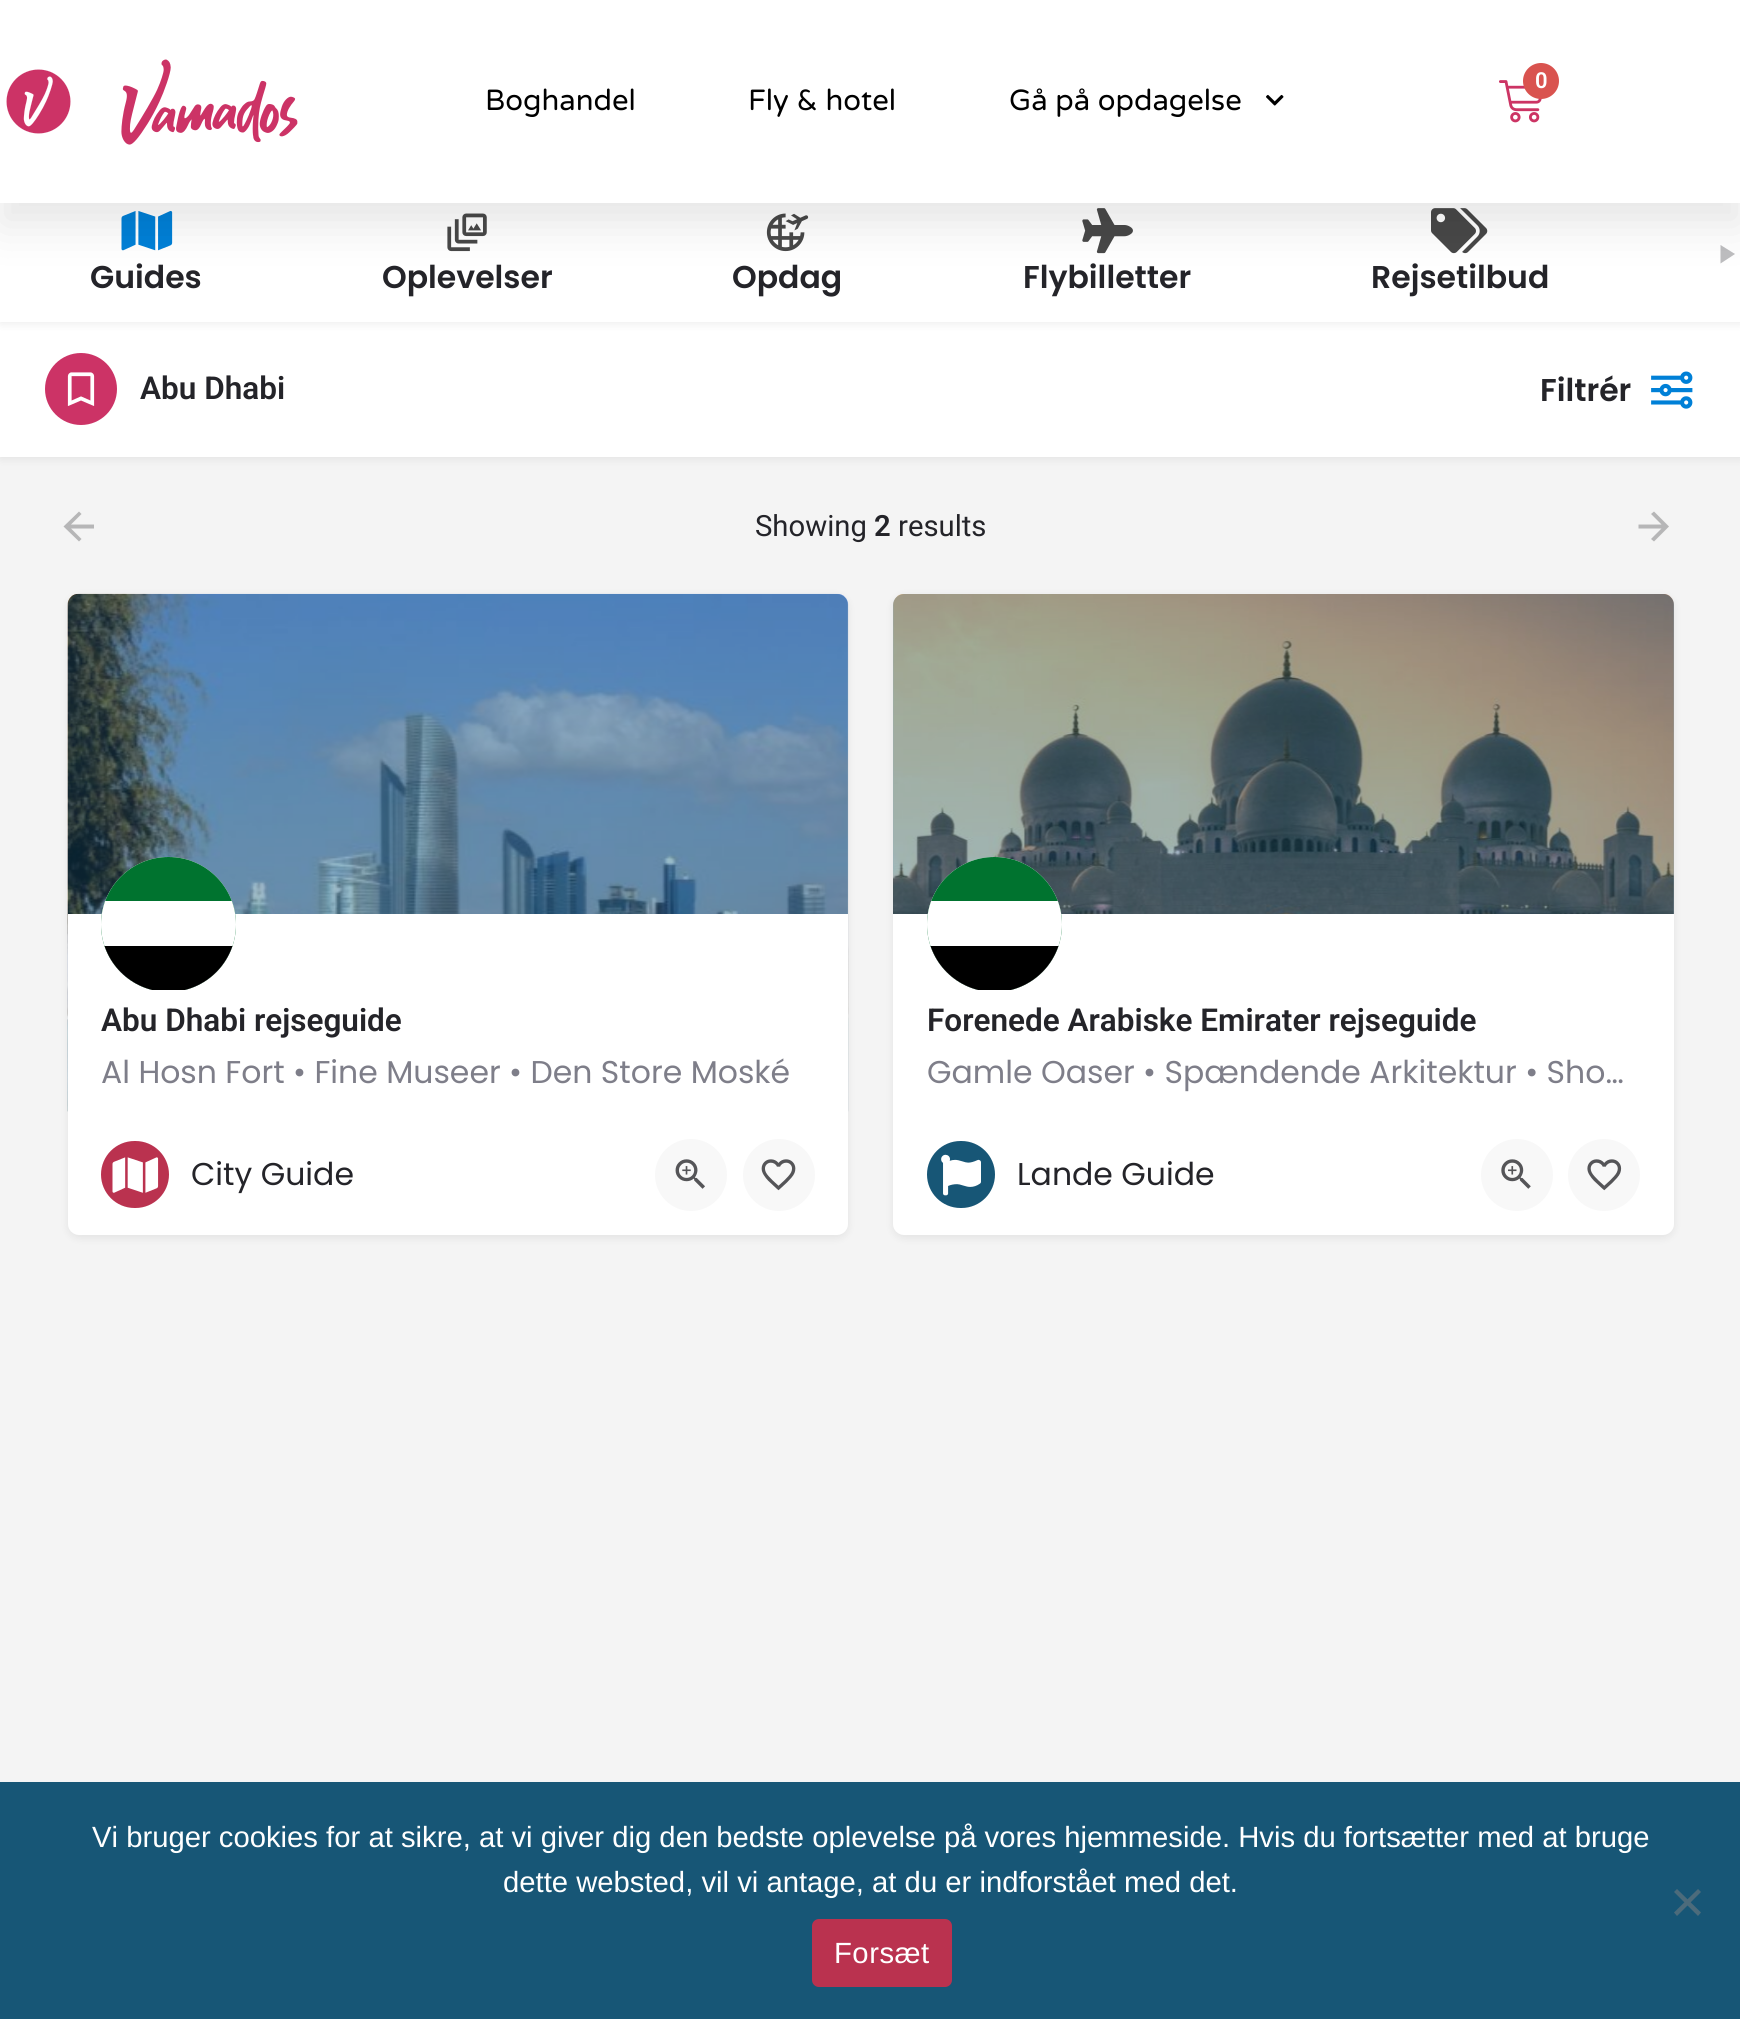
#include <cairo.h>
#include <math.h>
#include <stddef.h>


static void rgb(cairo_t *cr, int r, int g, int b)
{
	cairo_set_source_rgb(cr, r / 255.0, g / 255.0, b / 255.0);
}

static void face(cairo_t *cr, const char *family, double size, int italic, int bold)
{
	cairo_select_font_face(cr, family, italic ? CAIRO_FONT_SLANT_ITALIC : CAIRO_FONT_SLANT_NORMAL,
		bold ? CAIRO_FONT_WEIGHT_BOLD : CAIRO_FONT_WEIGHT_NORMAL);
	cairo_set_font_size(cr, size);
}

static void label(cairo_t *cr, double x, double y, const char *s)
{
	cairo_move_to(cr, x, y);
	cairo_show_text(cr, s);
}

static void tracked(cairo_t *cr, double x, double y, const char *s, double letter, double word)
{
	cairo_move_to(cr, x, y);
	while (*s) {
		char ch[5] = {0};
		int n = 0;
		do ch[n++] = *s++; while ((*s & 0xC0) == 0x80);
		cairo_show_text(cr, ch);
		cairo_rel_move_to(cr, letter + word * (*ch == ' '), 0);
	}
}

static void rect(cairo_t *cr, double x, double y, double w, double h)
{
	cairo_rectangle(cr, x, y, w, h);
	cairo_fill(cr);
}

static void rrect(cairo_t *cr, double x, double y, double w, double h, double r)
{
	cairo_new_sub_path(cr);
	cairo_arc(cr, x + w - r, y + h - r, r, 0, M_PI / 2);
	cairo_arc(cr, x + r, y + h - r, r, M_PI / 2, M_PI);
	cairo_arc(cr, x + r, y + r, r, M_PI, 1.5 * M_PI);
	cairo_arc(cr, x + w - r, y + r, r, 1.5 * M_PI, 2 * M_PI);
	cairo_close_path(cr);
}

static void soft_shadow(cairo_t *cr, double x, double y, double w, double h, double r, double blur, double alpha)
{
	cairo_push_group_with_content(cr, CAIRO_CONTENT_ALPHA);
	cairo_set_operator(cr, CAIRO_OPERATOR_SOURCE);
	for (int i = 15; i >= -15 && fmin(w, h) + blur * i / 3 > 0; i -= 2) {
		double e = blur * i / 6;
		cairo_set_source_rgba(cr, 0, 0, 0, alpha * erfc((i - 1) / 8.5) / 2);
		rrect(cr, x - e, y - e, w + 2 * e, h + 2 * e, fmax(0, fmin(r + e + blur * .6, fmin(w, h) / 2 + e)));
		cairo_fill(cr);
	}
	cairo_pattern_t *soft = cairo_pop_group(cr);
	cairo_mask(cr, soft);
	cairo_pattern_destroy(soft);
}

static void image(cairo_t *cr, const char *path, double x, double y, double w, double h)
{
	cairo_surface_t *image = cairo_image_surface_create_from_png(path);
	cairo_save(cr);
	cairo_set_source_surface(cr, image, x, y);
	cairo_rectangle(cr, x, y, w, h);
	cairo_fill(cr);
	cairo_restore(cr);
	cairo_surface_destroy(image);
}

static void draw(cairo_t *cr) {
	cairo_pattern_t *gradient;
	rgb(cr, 244, 244, 244);
	cairo_paint(cr);
	rgb(cr, 0, 0, 0);
	soft_shadow(cr, 0, 324, 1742, 135, 0, 4.5, 0.07);
	rgb(cr, 255, 255, 255);
	rect(cr, 0, 322, 1740, 135);
	rgb(cr, 0, 0, 0);
	soft_shadow(cr, 0, 189, 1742, 135, 0, 4.5, 0.07);
	rgb(cr, 255, 255, 255);
	rect(cr, 0, 203, 1724, 119);
	image(cr, "image4.png", 121, 210, 52, 41);
	image(cr, "image5.png", 447, 213, 40, 39);
	image(cr, "image6.png", 766, 213, 43, 39);
	image(cr, "image7.png", 1082, 208, 51, 46);
	image(cr, "image8.png", 1431, 208, 57, 46);
	gradient = cairo_pattern_create_linear(1654, 254, 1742, 254);
	cairo_pattern_add_color_stop_rgba(gradient, 0, 1, 1, 1, 0);
	cairo_pattern_add_color_stop_rgba(gradient, 0.8, 1, 1, 1, 1);
	cairo_set_source(cr, gradient);
	cairo_pattern_destroy(gradient);
	rect(cr, 1724, 203, 16, 119);
	rgb(cr, 189, 189, 191);
	cairo_new_path(cr);
	cairo_move_to(cr, 1720.5, 245);
	cairo_line_to(cr, 1735, 254);
	cairo_line_to(cr, 1720.5, 263.5);
	cairo_close_path(cr);
	cairo_fill(cr);
	rgb(cr, 0, 0, 0);
	soft_shadow(cr, 0, 23, 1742, 202, 0, 22.5, 0.1);
	rgb(cr, 255, 255, 255);
	rect(cr, 0, 0, 1740, 203);
	image(cr, "image0.png", 6, 69, 65, 65);
	image(cr, "image1.png", 121, 59, 177, 86);
	image(cr, "image2.png", 1499, 80, 43, 43);
	rgb(cr, 217, 83, 79);
	cairo_arc(cr, 1541, 81, 18, 0, 2 * M_PI);
	cairo_fill(cr);
	face(cr, "Roboto SemiBold", 22, 0, 0);
	rgb(cr, 255, 255, 255);
	label(cr, 1535, 88, "0");
	face(cr, "Varela Round", 29.25, 0, 0);
	rgb(cr, 0, 0, 0);
	label(cr, 485, 110, "Boghandel");
	label(cr, 748, 110, "Fly & hotel");
	label(cr, 1009, 110, "Gå på opdagelse");
	image(cr, "image3.png", 1266, 94, 18, 12);
	face(cr, "Poppins SemiBold", 31.5, 0, 0);
	rgb(cr, 36, 36, 41);
	label(cr, 90, 288, "Guides");
	label(cr, 382, 288, "Oplevelser");
	label(cr, 732, 288, "Opdag");
	label(cr, 1023, 288, "Flybilletter");
	label(cr, 1371, 288, "Rejsetilbud");
	rgb(cr, 204, 51, 102);
	cairo_new_path(cr);
	cairo_arc(cr, 81, 389, 36, 0, 2 * M_PI);
	cairo_fill(cr);
	image(cr, "image9.png", 67, 372, 28, 34);
	face(cr, "Roboto SemiBold", 31.5, 0, 0);
	rgb(cr, 36, 36, 41);
	label(cr, 140, 399, "Abu Dhabi");
	face(cr, "Poppins SemiBold", 31.5, 0, 0);
	label(cr, 1540, 401, "Filtrér");
	image(cr, "image10.png", 1651, 371, 42, 38);
	rgb(cr, 182, 182, 183);
	cairo_new_path(cr);
	cairo_move_to(cr, 94, 524.5);
	cairo_line_to(cr, 94, 528.5);
	cairo_line_to(cr, 71, 528.5);
	cairo_line_to(cr, 81.5, 539);
	cairo_line_to(cr, 79, 541.5);
	cairo_line_to(cr, 63.5, 526.5);
	cairo_line_to(cr, 79, 511.5);
	cairo_line_to(cr, 81.5, 514);
	cairo_line_to(cr, 71, 524.5);
	cairo_close_path(cr);
	cairo_fill(cr);
	face(cr, "Roboto", 29.25, 0, 0);
	rgb(cr, 36, 36, 41);
	label(cr, 755, 536, "Showing");
	face(cr, "Roboto SemiBold", 29.25, 0, 0);
	label(cr, 874, 536, "2");
	face(cr, "Roboto", 29.25, 0, 0);
	label(cr, 898, 536, "results");
	rgb(cr, 182, 182, 183);
	cairo_new_path(cr);
	cairo_move_to(cr, 1654, 511.5);
	cairo_line_to(cr, 1669, 526.5);
	cairo_line_to(cr, 1654, 541.5);
	cairo_line_to(cr, 1651, 539);
	cairo_line_to(cr, 1661.5, 528.5);
	cairo_line_to(cr, 1638.5, 528.5);
	cairo_line_to(cr, 1638.5, 524.5);
	cairo_line_to(cr, 1661.5, 524.5);
	cairo_line_to(cr, 1651, 514);
	cairo_close_path(cr);
	cairo_fill(cr);
	rgb(cr, 0, 0, 0);
	soft_shadow(cr, 68, 596, 780, 642, 11, 4.5, 0.07);
	image(cr, "image11.png", 67, 593, 782, 519);
	cairo_set_source_rgba(cr, 0.09, 0.337, 0.463, 0.4);
	cairo_new_path(cr);
	cairo_move_to(cr, 79, 594);
	cairo_line_to(cr, 837, 594);
	cairo_curve_to(cr, 843, 594, 848, 599, 848, 605);
	cairo_line_to(cr, 848, 1112);
	cairo_line_to(cr, 68, 1112);
	cairo_line_to(cr, 68, 605);
	cairo_curve_to(cr, 68, 599, 73, 594, 79, 594);
	cairo_close_path(cr);
	cairo_fill(cr);
	rgb(cr, 255, 255, 255);
	rect(cr, 68, 914, 780, 198);
	cairo_arc(cr, 168.5, 924.5, 67.5, 0, 2 * M_PI);
	cairo_fill(cr);
	cairo_save(cr);
	rrect(cr, 101, 857, 135, 135, 67.5);
	cairo_clip(cr);
	rgb(cr, 0, 115, 47);
	cairo_new_path(cr);
	cairo_move_to(cr, 168.5, 857);
	cairo_curve_to(cr, 206, 857, 236, 887, 236, 924.5);
	cairo_line_to(cr, 236, 990);
	cairo_line_to(cr, 101, 990);
	cairo_line_to(cr, 101, 924.5);
	cairo_curve_to(cr, 101, 887, 131, 857, 168.5, 857);
	cairo_close_path(cr);
	cairo_fill(cr);
	rgb(cr, 255, 255, 255);
	rect(cr, 101, 901, 135, 89);
	rgb(cr, 0, 0, 0);
	rect(cr, 104, 946, 129, 44);
	cairo_restore(cr);
	face(cr, "Roboto SemiBold", 31.5, 0, 0);
	rgb(cr, 36, 36, 41);
	label(cr, 101, 1031, "Abu Dhabi rejseguide");
	face(cr, "Poppins", 31.5, 0, 0);
	rgb(cr, 126, 126, 137);
	label(cr, 101, 1083, "Al Hosn Fort • Fine Museer • Den Store Moské");
	rgb(cr, 255, 255, 255);
	cairo_new_path(cr);
	cairo_move_to(cr, 68, 1112);
	cairo_line_to(cr, 848, 1112);
	cairo_line_to(cr, 848, 1224);
	cairo_curve_to(cr, 848, 1230, 843, 1235, 837, 1235);
	cairo_line_to(cr, 79, 1235);
	cairo_curve_to(cr, 73, 1235, 68, 1230, 68, 1224);
	cairo_close_path(cr);
	cairo_fill(cr);
	rgb(cr, 186, 50, 79);
	rrect(cr, 101, 1141, 68, 67, 33.5);
	cairo_fill(cr);
	image(cr, "image12.png", 112, 1157, 47, 36);
	rgb(cr, 36, 36, 41);
	label(cr, 191, 1185, "City Guide");
	rgb(cr, 248, 248, 248);
	cairo_new_path(cr);
	cairo_arc(cr, 691, 1175, 36, 0, 2 * M_PI);
	cairo_fill(cr);
	image(cr, "image13.png", 675, 1159, 30, 30);
	cairo_arc(cr, 779, 1175, 36, 0, 2 * M_PI);
	cairo_fill(cr);
	image(cr, "image14.png", 761, 1159, 35, 32);
	rgb(cr, 0, 0, 0);
	soft_shadow(cr, 893, 596, 781, 642, 11, 4.5, 0.07);
	image(cr, "image15.png", 893, 594, 781, 320);
	cairo_set_source_rgba(cr, 0.09, 0.337, 0.463, 0.4);
	cairo_new_path(cr);
	cairo_move_to(cr, 904, 594);
	cairo_line_to(cr, 1663, 594);
	cairo_curve_to(cr, 1669, 594, 1674, 599, 1674, 605);
	cairo_line_to(cr, 1674, 1112);
	cairo_line_to(cr, 893, 1112);
	cairo_line_to(cr, 893, 605);
	cairo_curve_to(cr, 893, 599, 898, 594, 904, 594);
	cairo_close_path(cr);
	cairo_fill(cr);
	rgb(cr, 255, 255, 255);
	rect(cr, 893, 914, 781, 198);
	cairo_arc(cr, 994.5, 924.5, 67.5, 0, 2 * M_PI);
	cairo_fill(cr);
	cairo_save(cr);
	rrect(cr, 927, 857, 135, 135, 67.5);
	cairo_clip(cr);
	rgb(cr, 0, 115, 47);
	cairo_new_path(cr);
	cairo_move_to(cr, 994.5, 857);
	cairo_curve_to(cr, 1032, 857, 1062, 887, 1062, 924.5);
	cairo_line_to(cr, 1062, 990);
	cairo_line_to(cr, 927, 990);
	cairo_line_to(cr, 927, 924.5);
	cairo_curve_to(cr, 927, 887, 957, 857, 994.5, 857);
	cairo_close_path(cr);
	cairo_fill(cr);
	rgb(cr, 255, 255, 255);
	rect(cr, 927, 901, 135, 89);
	rgb(cr, 0, 0, 0);
	rect(cr, 930, 946, 129, 44);
	cairo_restore(cr);
	face(cr, "Roboto SemiBold", 31.5, 0, 0);
	rgb(cr, 36, 36, 41);
	label(cr, 927, 1031, "Forenede Arabiske Emirater rejseguide");
	face(cr, "Poppins", 31.5, 0, 0);
	rgb(cr, 126, 126, 137);
	label(cr, 927, 1083, "Gamle Oaser • Spændende Arkitektur • Sho…");
	rgb(cr, 255, 255, 255);
	cairo_new_path(cr);
	cairo_move_to(cr, 893, 1112);
	cairo_line_to(cr, 1674, 1112);
	cairo_line_to(cr, 1674, 1224);
	cairo_curve_to(cr, 1674, 1230, 1669, 1235, 1663, 1235);
	cairo_line_to(cr, 904, 1235);
	cairo_curve_to(cr, 898, 1235, 893, 1230, 893, 1224);
	cairo_close_path(cr);
	cairo_fill(cr);
	rgb(cr, 23, 86, 118);
	rrect(cr, 927, 1141, 68, 67, 33.5);
	cairo_fill(cr);
	image(cr, "image16.png", 941, 1154, 40, 42);
	rgb(cr, 36, 36, 41);
	label(cr, 1017, 1185, "Lande Guide");
	rgb(cr, 248, 248, 248);
	cairo_new_path(cr);
	cairo_arc(cr, 1517, 1175, 36, 0, 2 * M_PI);
	cairo_fill(cr);
	image(cr, "image17.png", 1501, 1159, 30, 30);
	cairo_arc(cr, 1604, 1175, 36, 0, 2 * M_PI);
	cairo_fill(cr);
	image(cr, "image18.png", 1587, 1159, 35, 32);
	rgb(cr, 23, 86, 118);
	rect(cr, 0, 1782, 1740, 237);
	face(cr, "Liberation Sans", 29.25, 0, 0);
	rgb(cr, 255, 255, 255);
	label(cr, 92, 1847, "Vi bruger cookies for at sikre, at vi giver dig den bedste oplevelse på vores hjemmeside. Hvis du fortsætter med at bruge");
	label(cr, 503, 1892, "dette websted, vil vi antage, at du er indforstået med det.");
	rgb(cr, 76, 107, 123);
	cairo_new_path(cr);
	cairo_move_to(cr, 1698, 1889);
	cairo_line_to(cr, 1701, 1892);
	cairo_line_to(cr, 1677, 1916);
	cairo_line_to(cr, 1674, 1912.5);
	cairo_close_path(cr);
	cairo_fill(cr);
	cairo_new_path(cr);
	cairo_move_to(cr, 1674, 1892);
	cairo_line_to(cr, 1677, 1889);
	cairo_line_to(cr, 1701, 1912.5);
	cairo_line_to(cr, 1698, 1916);
	cairo_close_path(cr);
	cairo_fill(cr);
	rgb(cr, 186, 50, 79);
	rrect(cr, 812, 1919, 140, 68, 7);
	cairo_fill(cr);
	rgb(cr, 255, 255, 255);
	tracked(cr, 834, 1963, "Forsæt", 0.5, 0);
}

int main(void) {
	cairo_surface_t *surface = cairo_image_surface_create(CAIRO_FORMAT_RGB24, 1740, 2019);
	cairo_t *cr = cairo_create(surface);
	cairo_font_options_t *options = cairo_font_options_create();
	cairo_font_options_set_hint_metrics(options, CAIRO_HINT_METRICS_OFF);
	cairo_font_options_set_hint_style(options, CAIRO_HINT_STYLE_NONE);
	cairo_set_font_options(cr, options);
	cairo_set_miter_limit(cr, 4);
	draw(cr);
	cairo_surface_write_to_png(surface, "render.png");
	cairo_font_options_destroy(options);
	cairo_destroy(cr);
	cairo_surface_destroy(surface);
	return 0;
}
